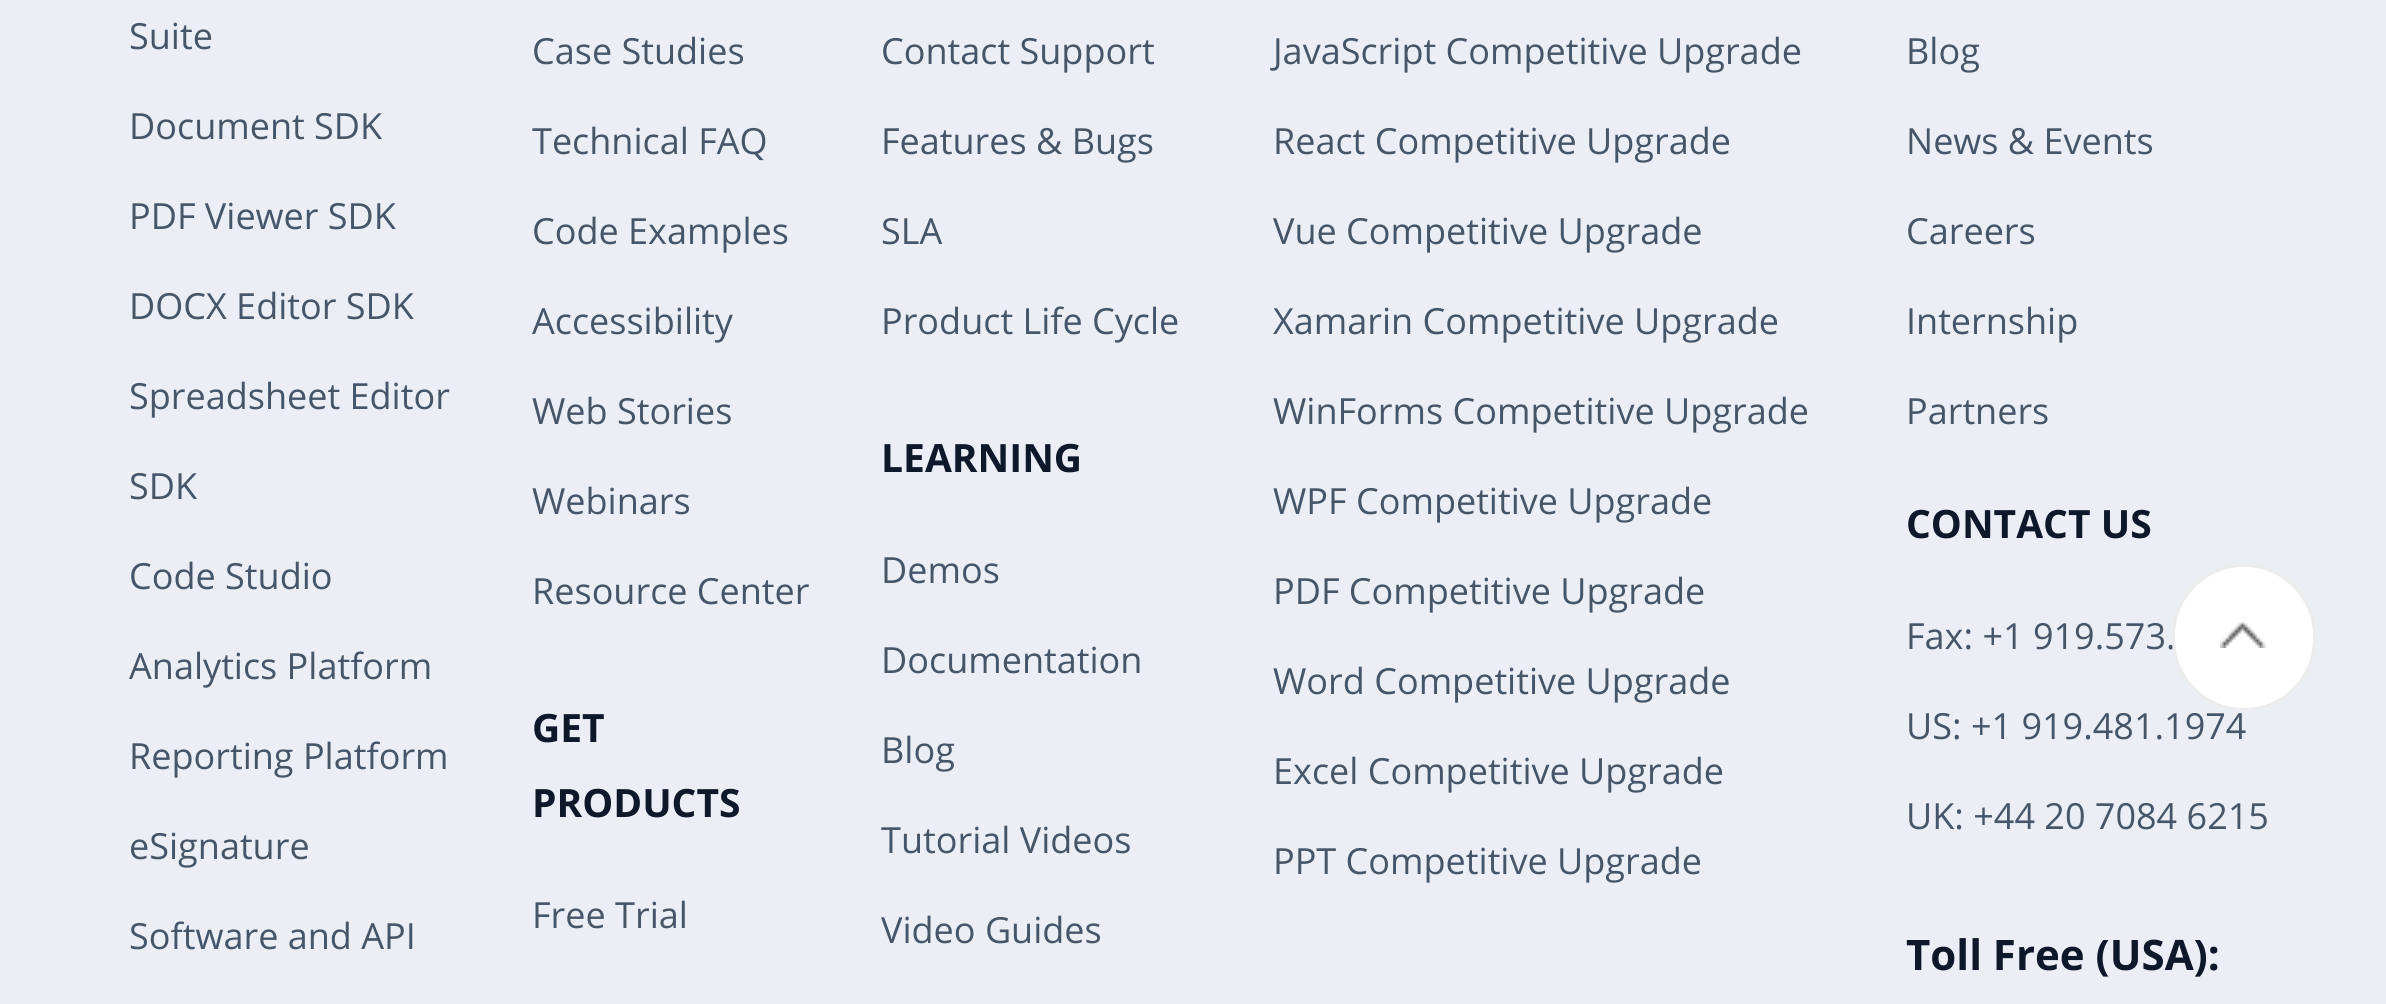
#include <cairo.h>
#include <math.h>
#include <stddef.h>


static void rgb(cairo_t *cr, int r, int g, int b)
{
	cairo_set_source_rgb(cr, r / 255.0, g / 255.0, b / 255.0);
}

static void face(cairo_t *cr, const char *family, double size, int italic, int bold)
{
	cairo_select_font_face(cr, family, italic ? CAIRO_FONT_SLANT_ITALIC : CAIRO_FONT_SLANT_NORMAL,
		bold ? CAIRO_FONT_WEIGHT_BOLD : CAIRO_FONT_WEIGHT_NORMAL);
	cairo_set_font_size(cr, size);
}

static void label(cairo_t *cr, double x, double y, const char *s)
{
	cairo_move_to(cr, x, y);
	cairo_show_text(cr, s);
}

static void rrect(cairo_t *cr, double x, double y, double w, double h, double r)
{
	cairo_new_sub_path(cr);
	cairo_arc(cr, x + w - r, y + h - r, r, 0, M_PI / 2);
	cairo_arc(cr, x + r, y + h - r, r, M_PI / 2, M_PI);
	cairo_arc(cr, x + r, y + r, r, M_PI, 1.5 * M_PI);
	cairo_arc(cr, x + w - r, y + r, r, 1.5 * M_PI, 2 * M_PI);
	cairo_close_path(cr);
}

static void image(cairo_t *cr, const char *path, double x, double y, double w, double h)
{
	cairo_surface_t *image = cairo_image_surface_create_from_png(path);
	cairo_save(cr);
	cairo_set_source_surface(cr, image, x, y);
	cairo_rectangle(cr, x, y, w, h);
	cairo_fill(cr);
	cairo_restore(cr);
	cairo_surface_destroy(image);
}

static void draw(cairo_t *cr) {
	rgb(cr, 235, 239, 245);
	cairo_paint(cr);
	face(cr, "Open Sans", 36, 0, 0);
	rgb(cr, 71, 85, 105);
	label(cr, 129, 49, "Suite");
	label(cr, 129, 139, "Document SDK");
	label(cr, 129, 229, "PDF Viewer SDK");
	label(cr, 129, 319, "DOCX Editor SDK");
	label(cr, 129, 409, "Spreadsheet Editor");
	label(cr, 129, 499, "SDK");
	label(cr, 129, 589, "Code Studio");
	label(cr, 129, 679, "Analytics Platform");
	label(cr, 129, 769, "Reporting Platform");
	label(cr, 129, 859, "eSignature");
	label(cr, 129, 949, "Software and API");
	label(cr, 532, 64, "Case Studies");
	label(cr, 532, 154, "Technical FAQ");
	label(cr, 532, 244, "Code Examples");
	label(cr, 532, 334, "Accessibility");
	label(cr, 532, 424, "Web Stories");
	label(cr, 532, 514, "Webinars");
	label(cr, 532, 604, "Resource Center");
	face(cr, "Open Sans", 39, 0, 1);
	rgb(cr, 15, 23, 42);
	label(cr, 532, 742, "GET");
	label(cr, 532, 817, "PRODUCTS");
	face(cr, "Open Sans", 36, 0, 0);
	rgb(cr, 71, 85, 105);
	label(cr, 532, 928, "Free Trial");
	label(cr, 881, 64, "Contact Support");
	label(cr, 881, 154, "Features & Bugs");
	label(cr, 881, 244, "SLA");
	label(cr, 881, 334, "Product Life Cycle");
	face(cr, "Open Sans", 39, 0, 1);
	rgb(cr, 15, 23, 42);
	label(cr, 881, 472, "LEARNING");
	face(cr, "Open Sans", 36, 0, 0);
	rgb(cr, 71, 85, 105);
	label(cr, 881, 583, "Demos");
	label(cr, 881, 673, "Documentation");
	label(cr, 881, 763, "Blog");
	label(cr, 881, 853, "Tutorial Videos");
	label(cr, 881, 943, "Video Guides");
	label(cr, 1273, 64, "JavaScript Competitive Upgrade");
	label(cr, 1273, 154, "React Competitive Upgrade");
	label(cr, 1273, 244, "Vue Competitive Upgrade");
	label(cr, 1273, 334, "Xamarin Competitive Upgrade");
	label(cr, 1273, 424, "WinForms Competitive Upgrade");
	label(cr, 1273, 514, "WPF Competitive Upgrade");
	label(cr, 1273, 604, "PDF Competitive Upgrade");
	label(cr, 1273, 694, "Word Competitive Upgrade");
	label(cr, 1273, 784, "Excel Competitive Upgrade");
	label(cr, 1273, 874, "PPT Competitive Upgrade");
	label(cr, 1906, 64, "Blog");
	label(cr, 1906, 154, "News & Events");
	label(cr, 1906, 244, "Careers");
	label(cr, 1906, 334, "Internship");
	label(cr, 1906, 424, "Partners");
	face(cr, "Open Sans", 39, 0, 1);
	rgb(cr, 15, 23, 42);
	label(cr, 1906, 538, "CONTACT US");
	face(cr, "Open Sans", 36, 0, 0);
	rgb(cr, 71, 85, 105);
	label(cr, 1906, 649, "Fax: +1 919.573.");
	label(cr, 1906, 739, "US: +1 919.481.1974");
	label(cr, 1906, 829, "UK: +44 20 7084 6215");
	face(cr, "Open Sans", 42, 0, 1);
	rgb(cr, 15, 23, 42);
	label(cr, 1906, 970, "Toll Free (USA):");
	rgb(cr, 255, 255, 255);
	rrect(cr, 2173.5, 565.5, 141, 144, 70.5);
	cairo_fill_preserve(cr);
	rgb(cr, 236, 236, 236);
	cairo_set_line_width(cr, 3);
	cairo_stroke(cr);
	image(cr, "image0.png", 2220, 620, 46, 28);
}

int main(void) {
	cairo_surface_t *surface = cairo_image_surface_create(CAIRO_FORMAT_RGB24, 2386, 1004);
	cairo_t *cr = cairo_create(surface);
	cairo_font_options_t *options = cairo_font_options_create();
	cairo_font_options_set_hint_metrics(options, CAIRO_HINT_METRICS_OFF);
	cairo_font_options_set_hint_style(options, CAIRO_HINT_STYLE_NONE);
	cairo_set_font_options(cr, options);
	cairo_set_miter_limit(cr, 4);
	draw(cr);
	cairo_surface_write_to_png(surface, "render.png");
	cairo_font_options_destroy(options);
	cairo_destroy(cr);
	cairo_surface_destroy(surface);
	return 0;
}
